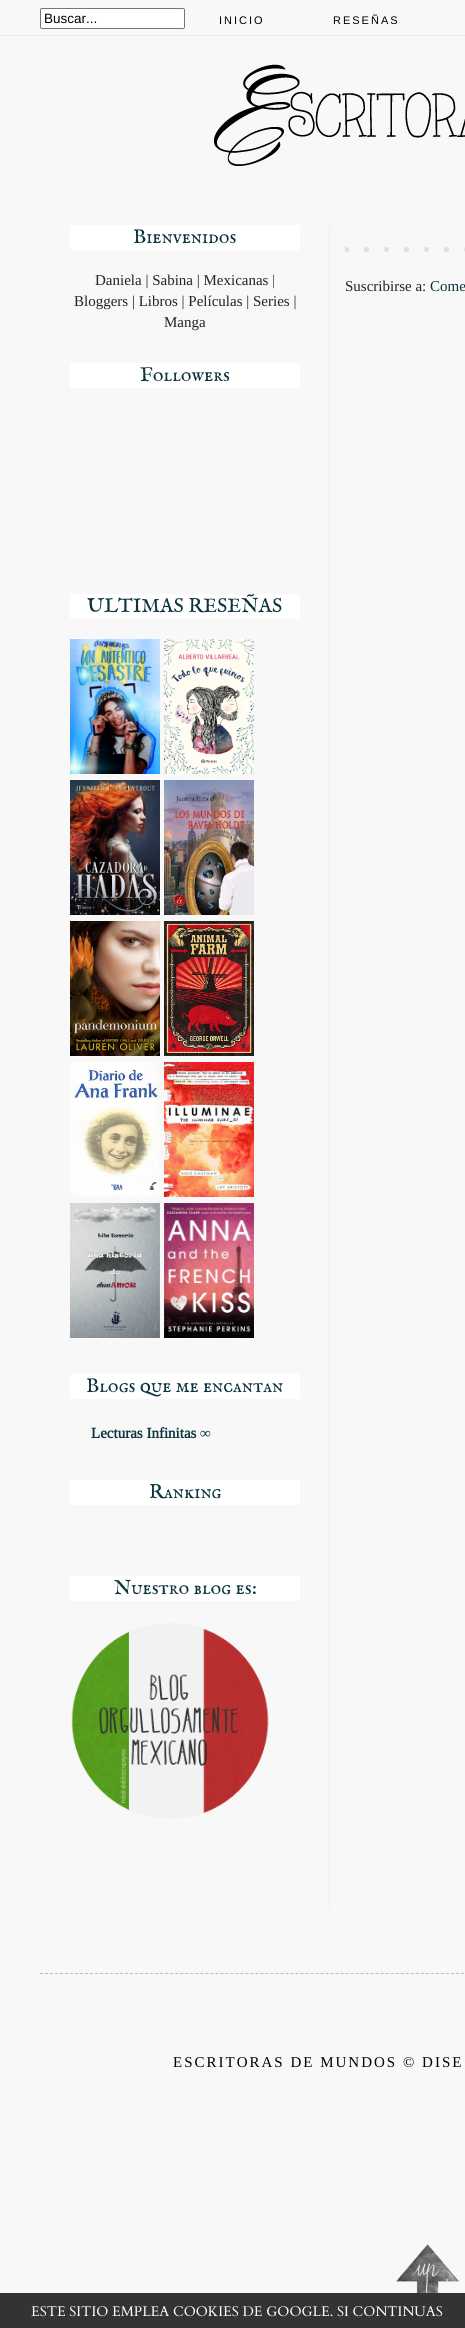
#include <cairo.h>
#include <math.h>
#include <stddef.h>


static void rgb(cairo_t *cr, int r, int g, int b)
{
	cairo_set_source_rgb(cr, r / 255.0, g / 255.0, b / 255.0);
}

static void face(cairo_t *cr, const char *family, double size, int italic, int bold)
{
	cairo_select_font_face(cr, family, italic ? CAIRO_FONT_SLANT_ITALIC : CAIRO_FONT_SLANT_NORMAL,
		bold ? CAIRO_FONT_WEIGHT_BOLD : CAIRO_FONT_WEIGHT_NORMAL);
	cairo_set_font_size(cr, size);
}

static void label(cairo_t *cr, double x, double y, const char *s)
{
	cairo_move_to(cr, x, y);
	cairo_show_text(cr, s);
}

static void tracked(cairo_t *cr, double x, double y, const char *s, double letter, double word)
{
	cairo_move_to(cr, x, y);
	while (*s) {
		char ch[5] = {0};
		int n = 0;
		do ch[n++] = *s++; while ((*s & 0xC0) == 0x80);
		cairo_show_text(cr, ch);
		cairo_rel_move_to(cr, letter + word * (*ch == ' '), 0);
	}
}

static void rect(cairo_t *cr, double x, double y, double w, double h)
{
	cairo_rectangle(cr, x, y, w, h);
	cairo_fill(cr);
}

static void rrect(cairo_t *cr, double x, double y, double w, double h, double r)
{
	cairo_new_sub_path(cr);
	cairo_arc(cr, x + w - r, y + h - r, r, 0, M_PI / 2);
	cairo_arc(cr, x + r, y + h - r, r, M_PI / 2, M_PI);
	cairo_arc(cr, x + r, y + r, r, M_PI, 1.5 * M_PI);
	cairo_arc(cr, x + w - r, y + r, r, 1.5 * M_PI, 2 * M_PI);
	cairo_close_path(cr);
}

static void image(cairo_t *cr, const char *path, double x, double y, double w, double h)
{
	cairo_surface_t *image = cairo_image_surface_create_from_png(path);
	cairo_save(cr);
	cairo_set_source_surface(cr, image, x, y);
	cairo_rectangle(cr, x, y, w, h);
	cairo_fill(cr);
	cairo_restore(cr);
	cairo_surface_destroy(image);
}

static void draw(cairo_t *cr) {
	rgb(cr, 248, 248, 248);
	cairo_paint(cr);
	rgb(cr, 233, 233, 233);
	rect(cr, 0, 35, 465, 1);
	rgb(cr, 255, 255, 255);
	rrect(cr, 40.5, 8.5, 144, 20, 1.5);
	cairo_fill_preserve(cr);
	rgb(cr, 118, 118, 118);
	cairo_set_line_width(cr, 1);
	cairo_stroke(cr);
	face(cr, "Liberation Sans", 13.5, 0, 0);
	rgb(cr, 0, 0, 0);
	label(cr, 44, 23, "Buscar...");
	face(cr, "Liberation Sans", 11, 0, 0);
	tracked(cr, 219, 24, "INICIO", 2, 0);
	tracked(cr, 333, 24, "RESEÑAS", 2, 0);
	image(cr, "image0.png", 214, 64, 251, 102);
	rgb(cr, 238, 238, 238);
	rect(cr, 329, 225, 1, 1683);
	rgb(cr, 255, 255, 255);
	rect(cr, 70, 225, 230, 25);
	face(cr, "IM FELL English SC", 20, 0, 0);
	rgb(cr, 12, 52, 61);
	label(cr, 133, 243, "Bienvenidos");
	face(cr, "Tinos", 15, 0, 0);
	rgb(cr, 34, 34, 34);
	label(cr, 95, 285, "Daniela | Sabina | Mexicanas |");
	label(cr, 74, 306, "Bloggers | Libros | Películas | Series |");
	label(cr, 164, 327, "Manga");
	rgb(cr, 255, 255, 255);
	rect(cr, 70, 363, 230, 25);
	face(cr, "IM FELL English SC", 20, 0, 0);
	rgb(cr, 12, 52, 61);
	label(cr, 140, 381, "Followers");
	rgb(cr, 255, 255, 255);
	rect(cr, 70, 594, 230, 25);
	rgb(cr, 12, 52, 61);
	label(cr, 87, 612, "ULTIMAS RESEÑAS");
	image(cr, "image1.png", 70, 639, 90, 135);
	image(cr, "image2.png", 164, 639, 90, 135);
	image(cr, "image3.png", 70, 780, 90, 135);
	image(cr, "image4.png", 164, 780, 90, 135);
	image(cr, "image5.png", 70, 921, 90, 135);
	image(cr, "image6.png", 164, 921, 90, 135);
	image(cr, "image7.png", 70, 1062, 90, 135);
	image(cr, "image8.png", 164, 1062, 90, 135);
	image(cr, "image9.png", 70, 1203, 90, 135);
	image(cr, "image10.png", 164, 1203, 90, 135);
	rgb(cr, 255, 255, 255);
	rect(cr, 70, 1374, 230, 25);
	rgb(cr, 12, 52, 61);
	label(cr, 86, 1392, "Blogs que me encantan");
	face(cr, "Tinos", 15, 0, 1);
	label(cr, 91, 1438, "Lecturas Infinitas");
	face(cr, "Liberation Serif", 15, 0, 1);
	label(cr, 200, 1438, "∞");
	rgb(cr, 255, 255, 255);
	rect(cr, 70, 1480, 230, 25);
	face(cr, "IM FELL English SC", 20, 0, 0);
	rgb(cr, 12, 52, 61);
	label(cr, 149, 1498, "Ranking");
	rgb(cr, 255, 255, 255);
	rect(cr, 70, 1576, 230, 25);
	rgb(cr, 12, 52, 61);
	label(cr, 114, 1594, "Nuestro blog es:");
	image(cr, "image11.png", 71, 1623, 198, 196);
	image(cr, "image12.png", 396, 2244, 63, 49);
	image(cr, "image13.png", 345, 247, 120, 5);
	face(cr, "Tinos", 15, 0, 0);
	rgb(cr, 34, 34, 34);
	label(cr, 345, 291, "Suscribirse a:");
	rgb(cr, 12, 52, 61);
	label(cr, 430, 291, "Come");
	cairo_new_path(cr);
	cairo_move_to(cr, 40, 1973.5);
	cairo_line_to(cr, 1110, 1973.5);
	rgb(cr, 187, 187, 187);
	cairo_set_dash(cr, (double[]){3, 2.01}, 2, 0);
	cairo_stroke(cr);
	rgb(cr, 0, 0, 0);
	tracked(cr, 173, 2067, "ESCRITORAS DE MUNDOS © DISE", 2, 0);
	rgb(cr, 51, 51, 51);
	rect(cr, 0, 2293, 465, 35);
	face(cr, "Cardo", 14, 0, 0);
	rgb(cr, 255, 255, 255);
	label(cr, 31, 2316, "ESTE SITIO EMPLEA COOKIES DE GOOGLE. SI CONTINUAS");
}

int main(void) {
	cairo_surface_t *surface = cairo_image_surface_create(CAIRO_FORMAT_RGB24, 465, 2328);
	cairo_t *cr = cairo_create(surface);
	cairo_font_options_t *options = cairo_font_options_create();
	cairo_font_options_set_hint_metrics(options, CAIRO_HINT_METRICS_OFF);
	cairo_font_options_set_hint_style(options, CAIRO_HINT_STYLE_NONE);
	cairo_set_font_options(cr, options);
	cairo_set_miter_limit(cr, 4);
	draw(cr);
	cairo_surface_write_to_png(surface, "render.png");
	cairo_font_options_destroy(options);
	cairo_destroy(cr);
	cairo_surface_destroy(surface);
	return 0;
}
